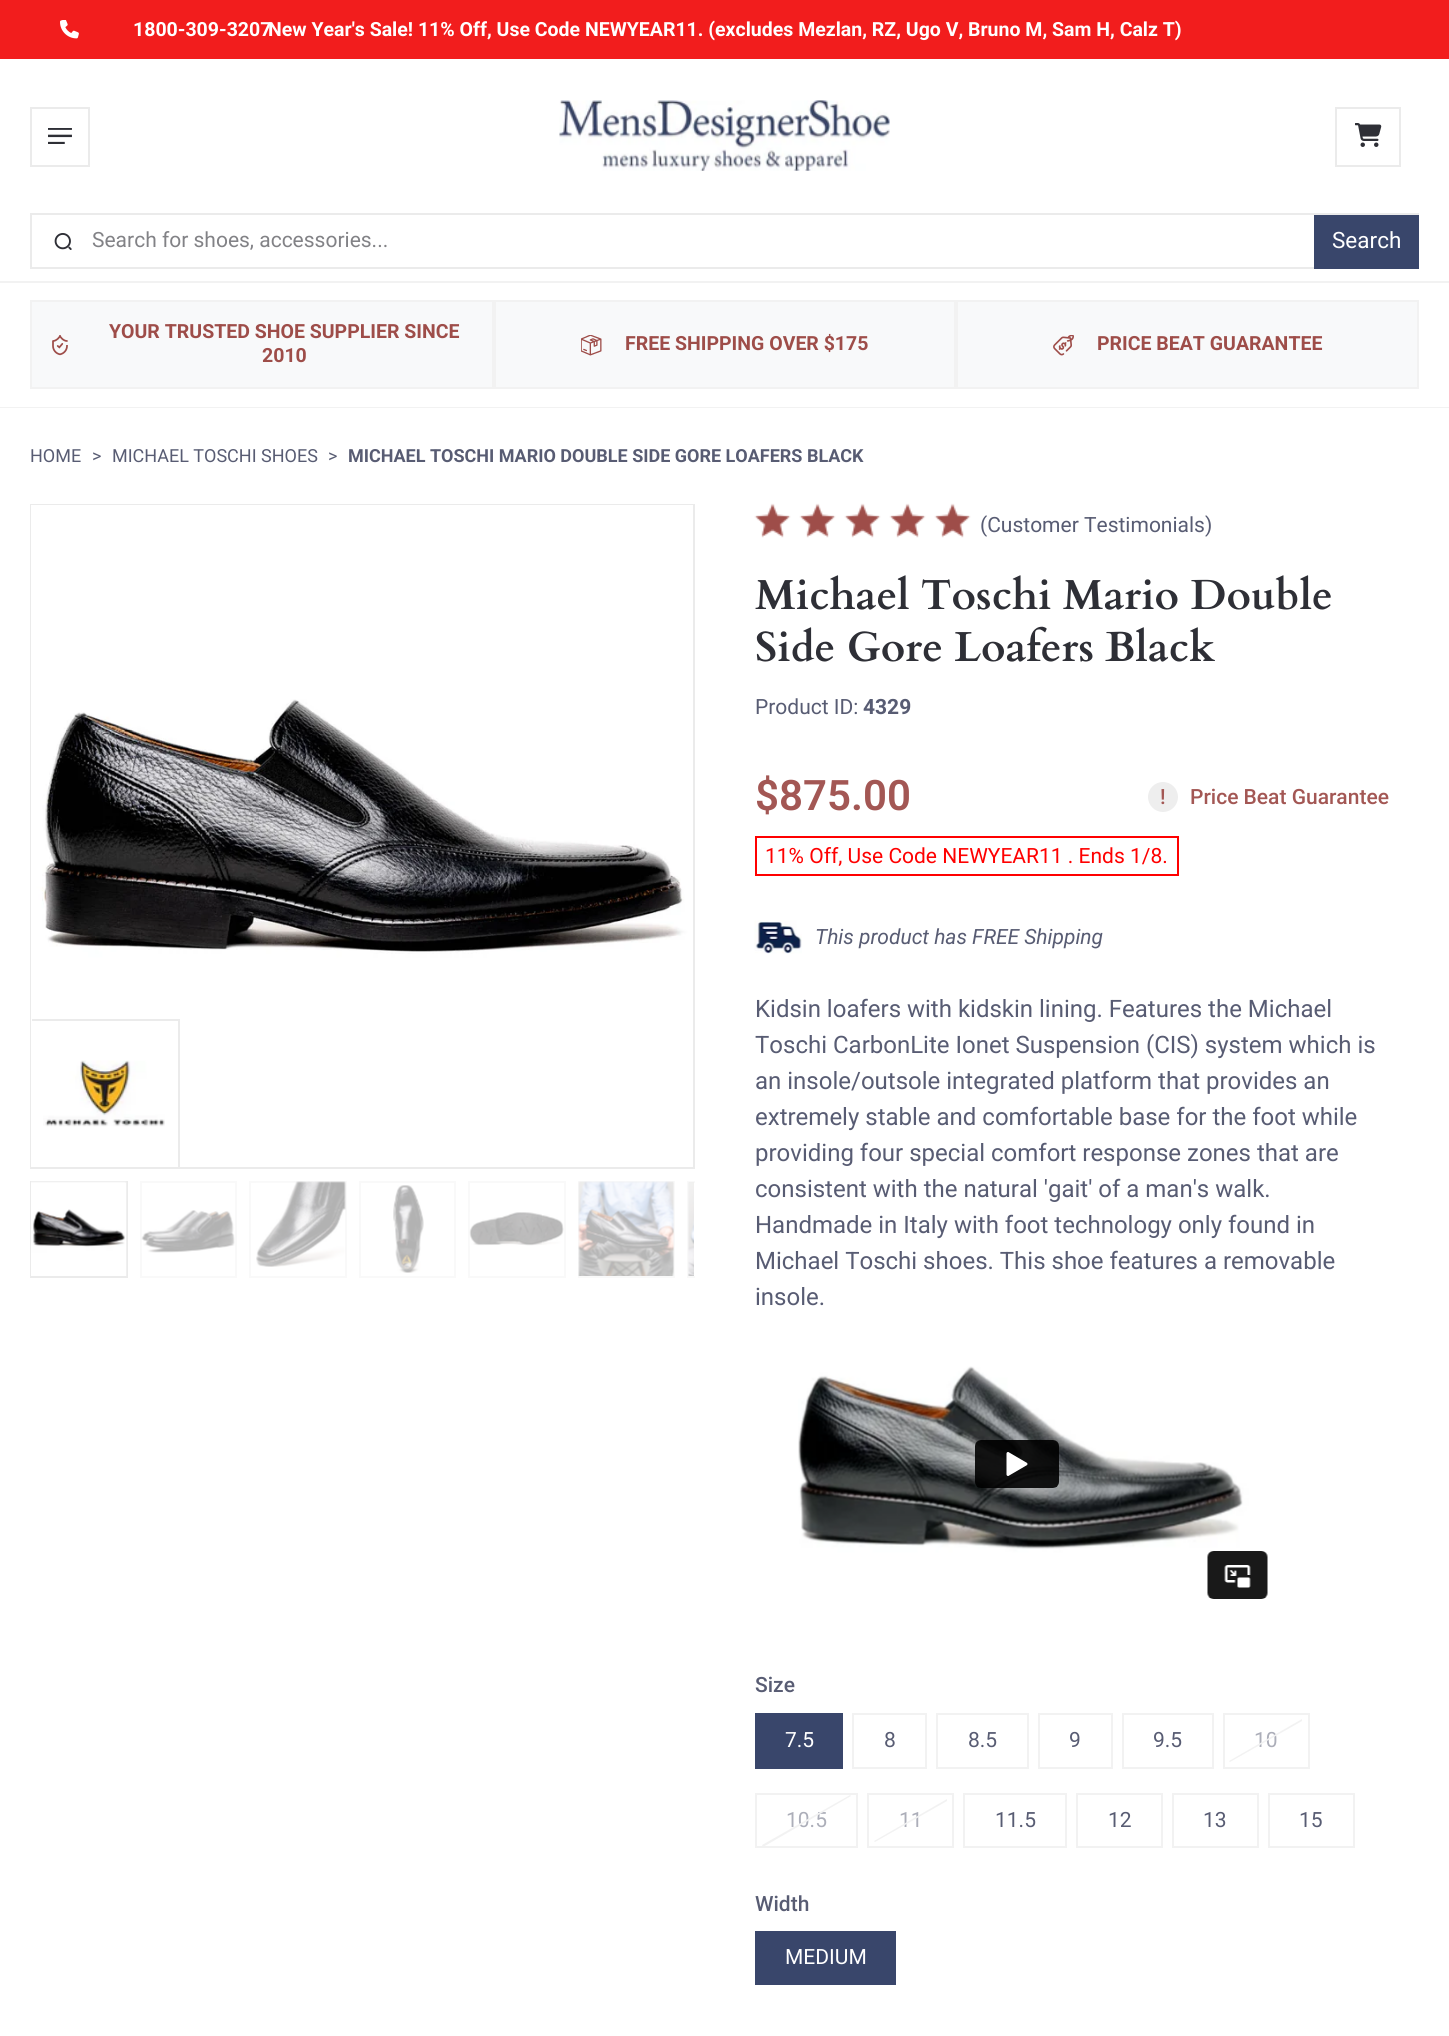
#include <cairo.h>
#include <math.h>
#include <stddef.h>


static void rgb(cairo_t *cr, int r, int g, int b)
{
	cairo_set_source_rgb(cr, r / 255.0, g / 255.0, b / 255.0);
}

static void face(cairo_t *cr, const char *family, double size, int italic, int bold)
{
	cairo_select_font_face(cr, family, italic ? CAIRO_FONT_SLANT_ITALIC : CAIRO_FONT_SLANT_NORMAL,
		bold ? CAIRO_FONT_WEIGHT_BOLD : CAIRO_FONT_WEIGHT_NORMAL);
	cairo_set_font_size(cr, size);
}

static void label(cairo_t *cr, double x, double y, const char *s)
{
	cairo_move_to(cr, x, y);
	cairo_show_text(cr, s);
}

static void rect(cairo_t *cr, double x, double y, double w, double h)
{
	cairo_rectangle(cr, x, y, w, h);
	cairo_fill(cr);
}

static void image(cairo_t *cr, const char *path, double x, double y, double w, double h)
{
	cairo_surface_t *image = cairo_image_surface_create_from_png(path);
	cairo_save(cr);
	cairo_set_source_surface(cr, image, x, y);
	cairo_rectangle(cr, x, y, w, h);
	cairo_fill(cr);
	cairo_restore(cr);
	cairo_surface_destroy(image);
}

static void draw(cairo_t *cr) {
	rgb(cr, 255, 255, 255);
	cairo_paint(cr);
	rgb(cr, 242, 29, 29);
	rect(cr, 0, 0, 1449, 59);
	image(cr, "image0.png", 60, 20, 19, 19);
	face(cr, "Roboto", 19.5, 0, 1);
	rgb(cr, 255, 255, 255);
	label(cr, 268, 36, "New Year's Sale! 11% Off, Use Code NEWYEAR11. (excludes Mezlan, RZ, Ugo V, Bruno M, Sam H, Calz T)");
	label(cr, 133, 36, "1800-309-3207");
	cairo_rectangle(cr, 31, 108, 58, 58);
	rgb(cr, 235, 235, 235);
	cairo_stroke(cr);
	image(cr, "image1.png", 48, 128, 24, 16);
	image(cr, "image2.png", 559, 100, 331, 71);
	cairo_rectangle(cr, 1336, 108, 64, 58);
	cairo_stroke(cr);
	image(cr, "image3.png", 1355, 123, 27, 24);
	image(cr, "image4.png", 54, 233, 18, 17);
	cairo_rectangle(cr, 31, 214, 1387, 54);
	cairo_stroke(cr);
	face(cr, "Roboto", 21, 0, 0);
	rgb(cr, 130, 130, 134);
	label(cr, 92, 247, "Search for shoes, accessories...");
	rgb(cr, 57, 70, 107);
	rect(cr, 1314, 215, 105, 54);
	face(cr, "Roboto", 22.5, 0, 0);
	rgb(cr, 255, 255, 255);
	label(cr, 1332, 248, "Search");
	rgb(cr, 242, 242, 242);
	rect(cr, 0, 281, 1449, 2);
	rgb(cr, 248, 249, 250);
	cairo_rectangle(cr, 31, 301, 462, 87);
	cairo_fill_preserve(cr);
	rgb(cr, 242, 242, 242);
	cairo_stroke(cr);
	image(cr, "image5.png", 52, 335, 16, 21);
	face(cr, "Roboto", 19.5, 0, 1);
	rgb(cr, 158, 77, 73);
	label(cr, 109, 338, "YOUR TRUSTED SHOE SUPPLIER SINCE");
	label(cr, 262, 362, "2010");
	rgb(cr, 248, 249, 250);
	cairo_rectangle(cr, 495, 301, 460, 87);
	cairo_fill_preserve(cr);
	rgb(cr, 242, 242, 242);
	cairo_stroke(cr);
	image(cr, "image6.png", 581, 335, 21, 21);
	rgb(cr, 158, 77, 73);
	label(cr, 625, 350, "FREE SHIPPING OVER $175");
	rgb(cr, 248, 249, 250);
	cairo_rectangle(cr, 957, 301, 461, 87);
	cairo_fill_preserve(cr);
	rgb(cr, 242, 242, 242);
	cairo_stroke(cr);
	image(cr, "image7.png", 1053, 335, 21, 21);
	rgb(cr, 158, 77, 73);
	label(cr, 1097, 350, "PRICE BEAT GUARANTEE");
	rgb(cr, 242, 242, 242);
	rect(cr, 0, 407, 1449, 1);
	face(cr, "Roboto", 18, 0, 0);
	rgb(cr, 88, 92, 115);
	label(cr, 30, 462, "HOME");
	label(cr, 92, 462, ">");
	label(cr, 112, 462, "MICHAEL TOSCHI SHOES");
	label(cr, 328, 462, ">");
	face(cr, "Roboto", 18, 0, 1);
	label(cr, 348, 462, "MICHAEL TOSCHI MARIO DOUBLE SIDE GORE LOAFERS BLACK");
	cairo_rectangle(cr, 31, 505, 663, 663);
	rgb(cr, 235, 235, 235);
	cairo_stroke(cr);
	image(cr, "image8.png", 31, 505, 662, 662);
	cairo_save(cr);
	cairo_rectangle(cr, 32, 506, 661, 661);
	cairo_clip(cr);
	cairo_rectangle(cr, 31, 1020, 148, 148);
	cairo_stroke(cr);
	cairo_restore(cr);
	image(cr, "image9.png", 43, 1060, 122, 67);
	cairo_rectangle(cr, 31, 1182, 96, 95);
	cairo_stroke(cr);
	image(cr, "image10.png", 31, 1181, 96, 95);
	cairo_rectangle(cr, 141, 1182, 95, 95);
	rgb(cr, 249, 249, 249);
	cairo_stroke(cr);
	image(cr, "image11.png", 141, 1210, 94, 43);
	cairo_rectangle(cr, 250, 1182, 96, 95);
	cairo_stroke(cr);
	image(cr, "image12.png", 256, 1181, 90, 86);
	cairo_rectangle(cr, 360, 1182, 95, 95);
	cairo_stroke(cr);
	image(cr, "image13.png", 393, 1185, 31, 88);
	cairo_rectangle(cr, 469, 1182, 96, 95);
	cairo_stroke(cr);
	image(cr, "image14.png", 469, 1212, 95, 34);
	cairo_rectangle(cr, 579, 1182, 95, 95);
	cairo_stroke(cr);
	image(cr, "image15.png", 578, 1181, 96, 95);
	cairo_save(cr);
	cairo_rectangle(cr, 30, 1181, 665, 97);
	cairo_clip(cr);
	cairo_rectangle(cr, 688, 1182, 96, 95);
	cairo_stroke(cr);
	cairo_restore(cr);
	image(cr, "image16.png", 688, 1182, 6, 94);
	image(cr, "image17.png", 754, 503, 217, 35);
	face(cr, "Roboto", 21, 0, 0);
	rgb(cr, 88, 92, 115);
	label(cr, 980, 532, "(Customer Testimonials)");
	face(cr, "Cardo", 42, 0, 1);
	rgb(cr, 46, 47, 54);
	label(cr, 755, 609, "Michael Toschi Mario Double");
	label(cr, 755, 661, "Side Gore Loafers Black");
	face(cr, "Roboto", 21, 0, 0);
	rgb(cr, 88, 92, 115);
	label(cr, 755, 714, "Product ID:");
	face(cr, "Roboto", 21, 0, 1);
	label(cr, 863, 714, "4329");
	face(cr, "Roboto SemiBold", 42, 0, 0);
	rgb(cr, 163, 87, 84);
	label(cr, 755, 810, "$875.00");
	rgb(cr, 238, 238, 238);
	cairo_new_path(cr);
	cairo_arc(cr, 1163, 797, 15, 0, 2 * M_PI);
	cairo_fill(cr);
	face(cr, "Roboto Medium", 21, 0, 0);
	rgb(cr, 163, 87, 84);
	label(cr, 1160, 804, "!");
	label(cr, 1190, 804, "Price Beat Guarantee");
	cairo_rectangle(cr, 756, 837, 422, 38);
	rgb(cr, 255, 0, 0);
	cairo_stroke(cr);
	face(cr, "Roboto", 21, 0, 0);
	label(cr, 765, 863, "11% Off, Use Code NEWYEAR11 . Ends 1/8.");
	image(cr, "image18.png", 754, 920, 48, 34);
	face(cr, "Roboto", 21, 1, 0);
	rgb(cr, 88, 92, 115);
	label(cr, 815, 944, "This product has FREE Shipping");
	face(cr, "Roboto", 24, 0, 0);
	label(cr, 755, 1017, "Kidsin loafers with kidskin lining. Features the Michael");
	label(cr, 755, 1053, "Toschi CarbonLite Ionet Suspension (CIS) system which is");
	label(cr, 755, 1089, "an insole/outsole integrated platform that provides an");
	label(cr, 755, 1125, "extremely stable and comfortable base for the foot while");
	label(cr, 755, 1161, "providing four special comfort response zones that are");
	label(cr, 755, 1197, "consistent with the natural 'gait' of a man's walk.");
	label(cr, 755, 1233, "Handmade in Italy with foot technology only found in");
	label(cr, 755, 1269, "Michael Toschi shoes. This shoe features a removable");
	label(cr, 755, 1305, "insole.");
	image(cr, "image19.png", 798, 1366, 470, 233);
	face(cr, "Roboto Medium", 21, 0, 0);
	label(cr, 755, 1692, "Size");
	rgb(cr, 57, 70, 107);
	rect(cr, 755, 1713, 88, 56);
	face(cr, "Roboto", 21, 0, 0);
	rgb(cr, 255, 255, 255);
	label(cr, 785, 1747, "7.5");
	cairo_rectangle(cr, 853, 1714, 73, 54);
	rgb(cr, 242, 242, 242);
	cairo_stroke(cr);
	rgb(cr, 88, 92, 115);
	label(cr, 884, 1747, "8");
	cairo_rectangle(cr, 937, 1714, 91, 54);
	rgb(cr, 242, 242, 242);
	cairo_stroke(cr);
	rgb(cr, 88, 92, 115);
	label(cr, 968, 1747, "8.5");
	cairo_rectangle(cr, 1039, 1714, 73, 54);
	rgb(cr, 242, 242, 242);
	cairo_stroke(cr);
	rgb(cr, 88, 92, 115);
	label(cr, 1069, 1747, "9");
	cairo_rectangle(cr, 1123, 1714, 90, 54);
	rgb(cr, 242, 242, 242);
	cairo_stroke(cr);
	rgb(cr, 88, 92, 115);
	label(cr, 1153, 1747, "9.5");
	cairo_rectangle(cr, 1224, 1714, 85, 54);
	rgb(cr, 242, 242, 242);
	cairo_stroke(cr);
	rgb(cr, 172, 174, 185);
	label(cr, 1254, 1747, "10");
	rgb(cr, 242, 242, 242);
	cairo_new_path(cr);
	cairo_move_to(cr, 1229, 1761);
	cairo_line_to(cr, 1302, 1719);
	cairo_line_to(cr, 1302, 1721);
	cairo_line_to(cr, 1230, 1762);
	cairo_close_path(cr);
	cairo_fill(cr);
	cairo_rectangle(cr, 756, 1794, 101, 53);
	cairo_stroke(cr);
	rgb(cr, 172, 174, 185);
	label(cr, 786, 1827, "10.5");
	rgb(cr, 242, 242, 242);
	cairo_new_path(cr);
	cairo_move_to(cr, 762, 1845);
	cairo_line_to(cr, 850, 1795);
	cairo_line_to(cr, 851, 1796);
	cairo_line_to(cr, 763, 1847);
	cairo_close_path(cr);
	cairo_fill(cr);
	cairo_rectangle(cr, 868, 1794, 85, 53);
	cairo_stroke(cr);
	rgb(cr, 172, 174, 185);
	label(cr, 899, 1827, "11");
	rgb(cr, 242, 242, 242);
	cairo_new_path(cr);
	cairo_move_to(cr, 874, 1841);
	cairo_line_to(cr, 947, 1799);
	cairo_line_to(cr, 947, 1801);
	cairo_line_to(cr, 875, 1842);
	cairo_close_path(cr);
	cairo_fill(cr);
	cairo_rectangle(cr, 964, 1794, 102, 53);
	cairo_stroke(cr);
	rgb(cr, 88, 92, 115);
	label(cr, 995, 1827, "11.5");
	cairo_rectangle(cr, 1077, 1794, 85, 53);
	rgb(cr, 242, 242, 242);
	cairo_stroke(cr);
	rgb(cr, 88, 92, 115);
	label(cr, 1108, 1827, "12");
	cairo_rectangle(cr, 1173, 1794, 85, 53);
	rgb(cr, 242, 242, 242);
	cairo_stroke(cr);
	rgb(cr, 88, 92, 115);
	label(cr, 1203, 1827, "13");
	cairo_rectangle(cr, 1269, 1794, 85, 53);
	rgb(cr, 242, 242, 242);
	cairo_stroke(cr);
	rgb(cr, 88, 92, 115);
	label(cr, 1299, 1827, "15");
	face(cr, "Roboto Medium", 21, 0, 0);
	label(cr, 755, 1911, "Width");
	rgb(cr, 57, 70, 107);
	rect(cr, 755, 1931, 141, 54);
	face(cr, "Roboto", 21, 0, 0);
	rgb(cr, 255, 255, 255);
	label(cr, 785, 1964, "MEDIUM");
}

int main(void) {
	cairo_surface_t *surface = cairo_image_surface_create(CAIRO_FORMAT_RGB24, 1449, 2036);
	cairo_t *cr = cairo_create(surface);
	cairo_font_options_t *options = cairo_font_options_create();
	cairo_font_options_set_hint_metrics(options, CAIRO_HINT_METRICS_OFF);
	cairo_font_options_set_hint_style(options, CAIRO_HINT_STYLE_NONE);
	cairo_set_font_options(cr, options);
	cairo_set_miter_limit(cr, 4);
	draw(cr);
	cairo_surface_write_to_png(surface, "render.png");
	cairo_font_options_destroy(options);
	cairo_destroy(cr);
	cairo_surface_destroy(surface);
	return 0;
}
